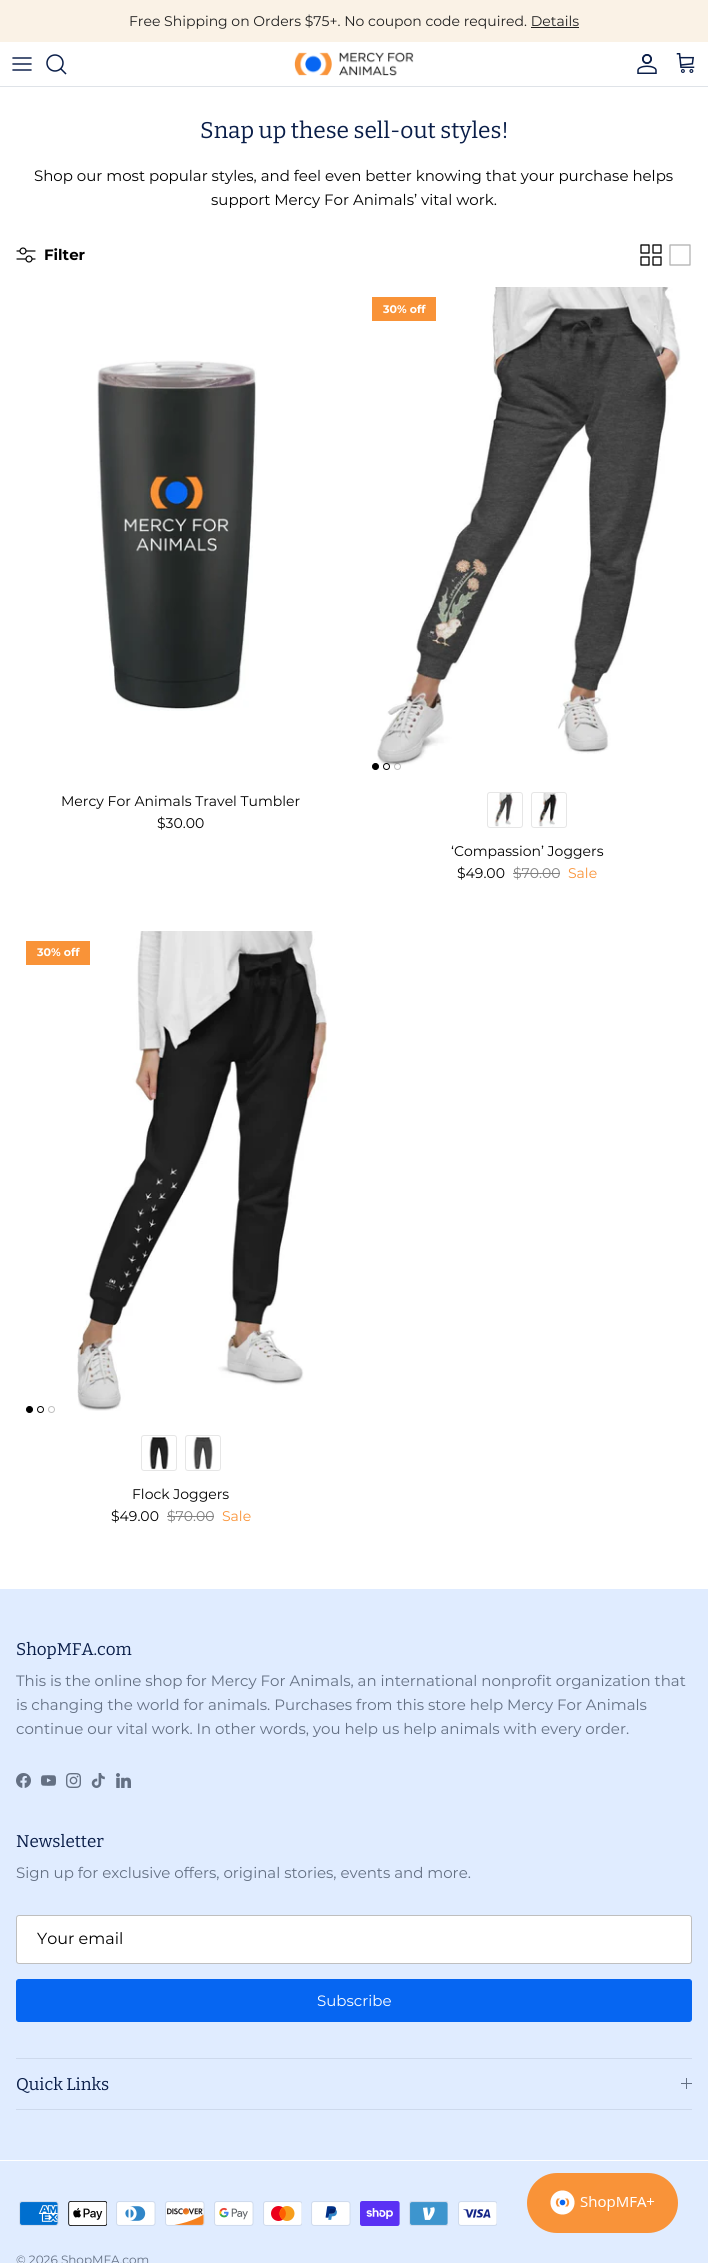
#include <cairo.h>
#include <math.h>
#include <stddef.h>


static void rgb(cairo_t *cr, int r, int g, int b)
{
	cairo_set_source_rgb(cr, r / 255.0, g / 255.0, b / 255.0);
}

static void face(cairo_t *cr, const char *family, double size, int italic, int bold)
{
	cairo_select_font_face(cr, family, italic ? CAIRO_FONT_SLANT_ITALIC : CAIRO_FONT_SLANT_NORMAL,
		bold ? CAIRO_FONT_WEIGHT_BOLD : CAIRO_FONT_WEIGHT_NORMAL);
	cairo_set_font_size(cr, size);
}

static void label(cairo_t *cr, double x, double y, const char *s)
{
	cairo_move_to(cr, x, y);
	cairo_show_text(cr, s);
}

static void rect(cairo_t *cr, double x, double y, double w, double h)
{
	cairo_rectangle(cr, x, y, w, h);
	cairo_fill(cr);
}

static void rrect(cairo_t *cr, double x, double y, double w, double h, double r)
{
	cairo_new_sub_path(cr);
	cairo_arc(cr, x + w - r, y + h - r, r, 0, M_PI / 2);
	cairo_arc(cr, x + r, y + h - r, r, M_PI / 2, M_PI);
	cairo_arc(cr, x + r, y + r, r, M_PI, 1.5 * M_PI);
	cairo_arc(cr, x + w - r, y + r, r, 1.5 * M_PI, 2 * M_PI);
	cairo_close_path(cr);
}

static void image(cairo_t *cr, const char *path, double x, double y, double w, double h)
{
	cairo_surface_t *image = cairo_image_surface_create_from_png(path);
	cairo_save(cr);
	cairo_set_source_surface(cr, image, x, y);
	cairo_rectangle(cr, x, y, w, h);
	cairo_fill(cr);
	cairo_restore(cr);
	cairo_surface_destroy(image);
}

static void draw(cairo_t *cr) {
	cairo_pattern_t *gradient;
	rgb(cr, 255, 255, 255);
	cairo_paint(cr);
	rgb(cr, 250, 242, 230);
	rect(cr, 0, 0, 708, 42);
	face(cr, "Montserrat", 14, 0, 0);
	rgb(cr, 33, 33, 33);
	label(cr, 129, 26, "Free Shipping on Orders $75+. No coupon code required. Details");
	rect(cr, 531, 27, 48, 1);
	rgb(cr, 223, 227, 232);
	rect(cr, 0, 86, 708, 1);
	cairo_new_path(cr);
	cairo_move_to(cr, 13, 64);
	cairo_line_to(cr, 31, 64);
	cairo_move_to(cr, 13, 58);
	cairo_line_to(cr, 31, 58);
	cairo_move_to(cr, 13, 70);
	cairo_line_to(cr, 31, 70);
	rgb(cr, 9, 29, 72);
	cairo_set_line_width(cr, 1.5);
	cairo_set_line_cap(cr, CAIRO_LINE_CAP_ROUND);
	cairo_set_line_join(cr, CAIRO_LINE_JOIN_ROUND);
	cairo_stroke(cr);
	cairo_arc(cr, 55, 63, 8, 0, 2 * M_PI);
	cairo_set_line_cap(cr, CAIRO_LINE_CAP_BUTT);
	cairo_set_line_join(cr, CAIRO_LINE_JOIN_MITER);
	cairo_stroke(cr);
	cairo_new_path(cr);
	cairo_move_to(cr, 61, 69);
	cairo_line_to(cr, 65.5, 73.5);
	cairo_set_line_cap(cr, CAIRO_LINE_CAP_SQUARE);
	cairo_stroke(cr);
	image(cr, "image0.png", 294, 52, 120, 24);
	image(cr, "image1.png", 637, 54, 20, 20);
	image(cr, "image2.png", 676, 53, 19, 20);
	face(cr, "Bitter", 22.75, 0, 0);
	label(cr, 200, 138, "Snap up these sell-out styles!");
	face(cr, "Montserrat", 15, 0, 0);
	rgb(cr, 0, 0, 0);
	label(cr, 34, 181, "Shop our most popular styles, and feel even better knowing that your purchase helps");
	label(cr, 211, 205, "support Mercy For Animals’ vital work.");
	image(cr, "image3.png", 16, 247, 20, 16);
	face(cr, "Montserrat", 15, 0, 1);
	label(cr, 44, 260, "Filter");
	image(cr, "image4.png", 640, 244, 22, 22);
	cairo_new_path(cr);
	cairo_move_to(cr, 670, 245);
	cairo_line_to(cr, 690, 245);
	cairo_line_to(cr, 690, 265);
	cairo_line_to(cr, 670, 265);
	cairo_line_to(cr, 670, 245);
	rgb(cr, 179, 179, 179);
	cairo_set_line_width(cr, 1.3);
	cairo_set_line_cap(cr, CAIRO_LINE_CAP_ROUND);
	cairo_set_line_join(cr, CAIRO_LINE_JOIN_ROUND);
	cairo_stroke(cr);
	image(cr, "image5.png", 97, 360, 160, 351);
	face(cr, "Montserrat", 14, 0, 0);
	rgb(cr, 0, 0, 0);
	label(cr, 61, 806, "Mercy For Animals Travel Tumbler");
	label(cr, 157, 828, "$30.00");
	image(cr, "image6.png", 377, 287, 304, 479);
	rgb(cr, 249, 147, 56);
	rect(cr, 372, 297, 64, 24);
	face(cr, "Montserrat", 11, 0, 1);
	rgb(cr, 255, 255, 255);
	label(cr, 383, 313, "30% off");
	rgb(cr, 0, 0, 0);
	cairo_new_path(cr);
	cairo_arc(cr, 375.5, 766.5, 3, 0, 2 * M_PI);
	cairo_fill_preserve(cr);
	cairo_set_line_width(cr, 1);
	cairo_set_line_cap(cr, CAIRO_LINE_CAP_BUTT);
	cairo_set_line_join(cr, CAIRO_LINE_JOIN_MITER);
	cairo_stroke(cr);
	cairo_arc(cr, 386.5, 766.5, 3, 0, 2 * M_PI);
	cairo_stroke(cr);
	cairo_arc(cr, 397.5, 766.5, 3, 0, 2 * M_PI);
	cairo_set_source_rgba(cr, 0, 0, 0, 0.25);
	cairo_stroke(cr);
	rrect(cr, 487.5, 792.5, 35, 35, 2.5);
	rgb(cr, 230, 230, 230);
	cairo_stroke(cr);
	image(cr, "image7.png", 494, 793, 20, 34);
	rrect(cr, 531.5, 792.5, 35, 35, 2.5);
	cairo_stroke(cr);
	image(cr, "image8.png", 538, 793, 20, 34);
	face(cr, "Montserrat", 14, 0, 0);
	rgb(cr, 0, 0, 0);
	label(cr, 451, 856, "‘Compassion’ Joggers");
	label(cr, 457, 878, "$49.00");
	rgb(cr, 128, 128, 128);
	label(cr, 513, 878, "$70.00");
	rect(cr, 513, 873, 47, 1);
	rgb(cr, 249, 147, 56);
	label(cr, 568, 878, "Sale");
	image(cr, "image9.png", 77, 931, 250, 480);
	rect(cr, 26, 941, 64, 24);
	face(cr, "Montserrat", 11, 0, 1);
	rgb(cr, 255, 255, 255);
	label(cr, 37, 956, "30% off");
	rgb(cr, 0, 0, 0);
	cairo_new_path(cr);
	cairo_arc(cr, 29.5, 1409.5, 3, 0, 2 * M_PI);
	cairo_fill_preserve(cr);
	cairo_stroke(cr);
	cairo_arc(cr, 40.5, 1409.5, 3, 0, 2 * M_PI);
	cairo_stroke(cr);
	cairo_arc(cr, 51.5, 1409.5, 3, 0, 2 * M_PI);
	rgb(cr, 191, 191, 191);
	cairo_stroke(cr);
	rrect(cr, 141.5, 1435.5, 35, 35, 2.5);
	rgb(cr, 230, 230, 230);
	cairo_stroke(cr);
	image(cr, "image10.png", 149, 1437, 20, 33);
	rrect(cr, 185.5, 1435.5, 35, 35, 2.5);
	cairo_stroke(cr);
	image(cr, "image11.png", 193, 1436, 20, 34);
	face(cr, "Montserrat", 14, 0, 0);
	rgb(cr, 0, 0, 0);
	label(cr, 132, 1499, "Flock Joggers");
	label(cr, 111, 1521, "$49.00");
	rgb(cr, 128, 128, 128);
	label(cr, 167, 1521, "$70.00");
	rect(cr, 167, 1516, 47, 1);
	rgb(cr, 249, 147, 56);
	label(cr, 222, 1521, "Sale");
	rgb(cr, 224, 236, 255);
	rect(cr, 0, 1589, 708, 674);
	face(cr, "Bitter", 17, 0, 0);
	rgb(cr, 9, 29, 72);
	label(cr, 16, 1655, "ShopMFA.com");
	face(cr, "Montserrat", 15, 0, 0);
	rgb(cr, 100, 112, 131);
	label(cr, 16, 1686, "This is the online shop for Mercy For Animals, an international nonprofit organization that");
	label(cr, 16, 1710, "is changing the world for animals. Purchases from this store help Mercy For Animals");
	label(cr, 16, 1734, "continue our vital work. In other words, you help us help animals with every order.");
	image(cr, "image12.png", 16, 1773, 15, 15);
	image(cr, "image13.png", 41, 1775, 15, 11);
	image(cr, "image14.png", 66, 1773, 15, 15);
	image(cr, "image15.png", 91, 1773, 14, 15);
	image(cr, "image16.png", 116, 1773, 15, 15);
	face(cr, "Bitter", 17, 0, 0);
	rgb(cr, 9, 29, 72);
	label(cr, 16, 1847, "Newsletter");
	face(cr, "Montserrat", 15, 0, 0);
	rgb(cr, 100, 112, 131);
	label(cr, 16, 1878, "Sign up for exclusive offers, original stories, events and more.");
	rgb(cr, 255, 255, 255);
	rrect(cr, 16.5, 1915.5, 675, 48, 2.5);
	cairo_fill_preserve(cr);
	rgb(cr, 191, 191, 191);
	cairo_stroke(cr);
	face(cr, "Montserrat", 16, 0, 0);
	rgb(cr, 0, 0, 0);
	label(cr, 37, 1944, "Your email");
	rgb(cr, 6, 102, 242);
	rrect(cr, 16.5, 1979.5, 675, 42, 2.5);
	cairo_fill_preserve(cr);
	cairo_stroke(cr);
	face(cr, "Montserrat", 15, 0, 0);
	rgb(cr, 255, 255, 255);
	label(cr, 317, 2006, "Subscribe");
	rgb(cr, 205, 217, 236);
	rect(cr, 16, 2058, 676, 1);
	rect(cr, 16, 2109, 676, 1);
	face(cr, "Bitter", 17, 0, 0);
	rgb(cr, 9, 29, 72);
	label(cr, 16, 2090, "Quick Links");
	rgb(cr, 100, 112, 131);
	rect(cr, 686, 2078, 1, 11);
	rect(cr, 681, 2083, 11, 1);
	rgb(cr, 255, 255, 255);
	rect(cr, 0, 2160, 708, 1);
	image(cr, "image17.png", 19, 2201, 40, 25);
	image(cr, "image18.png", 68, 2201, 39, 25);
	image(cr, "image19.png", 116, 2201, 40, 25);
	image(cr, "image20.png", 165, 2201, 40, 25);
	image(cr, "image21.png", 214, 2201, 40, 25);
	image(cr, "image22.png", 263, 2201, 39, 25);
	image(cr, "image23.png", 311, 2201, 40, 25);
	image(cr, "image24.png", 360, 2201, 40, 25);
	image(cr, "image25.png", 409, 2201, 39, 25);
	image(cr, "image26.png", 458, 2201, 39, 25);
	face(cr, "Montserrat", 12, 0, 0);
	rgb(cr, 100, 112, 131);
	label(cr, 16, 2264, "© 2026 ShopMFA.com");
	gradient = cairo_pattern_create_linear(550, 2150, 655, 2256);
	cairo_pattern_add_color_stop_rgba(gradient, 0, 0.976, 0.576, 0.22, 1);
	cairo_pattern_add_color_stop_rgba(gradient, 1, 0.976, 0.576, 0.224, 1);
	cairo_set_source(cr, gradient);
	cairo_pattern_destroy(gradient);
	rrect(cr, 527, 2173, 151, 60, 30);
	cairo_fill(cr);
	image(cr, "image27.png", 550, 2190, 105, 25);
}

int main(void) {
	cairo_surface_t *surface = cairo_image_surface_create(CAIRO_FORMAT_RGB24, 708, 2263);
	cairo_t *cr = cairo_create(surface);
	cairo_font_options_t *options = cairo_font_options_create();
	cairo_font_options_set_hint_metrics(options, CAIRO_HINT_METRICS_OFF);
	cairo_font_options_set_hint_style(options, CAIRO_HINT_STYLE_NONE);
	cairo_set_font_options(cr, options);
	cairo_set_miter_limit(cr, 4);
	draw(cr);
	cairo_surface_write_to_png(surface, "render.png");
	cairo_font_options_destroy(options);
	cairo_destroy(cr);
	cairo_surface_destroy(surface);
	return 0;
}
